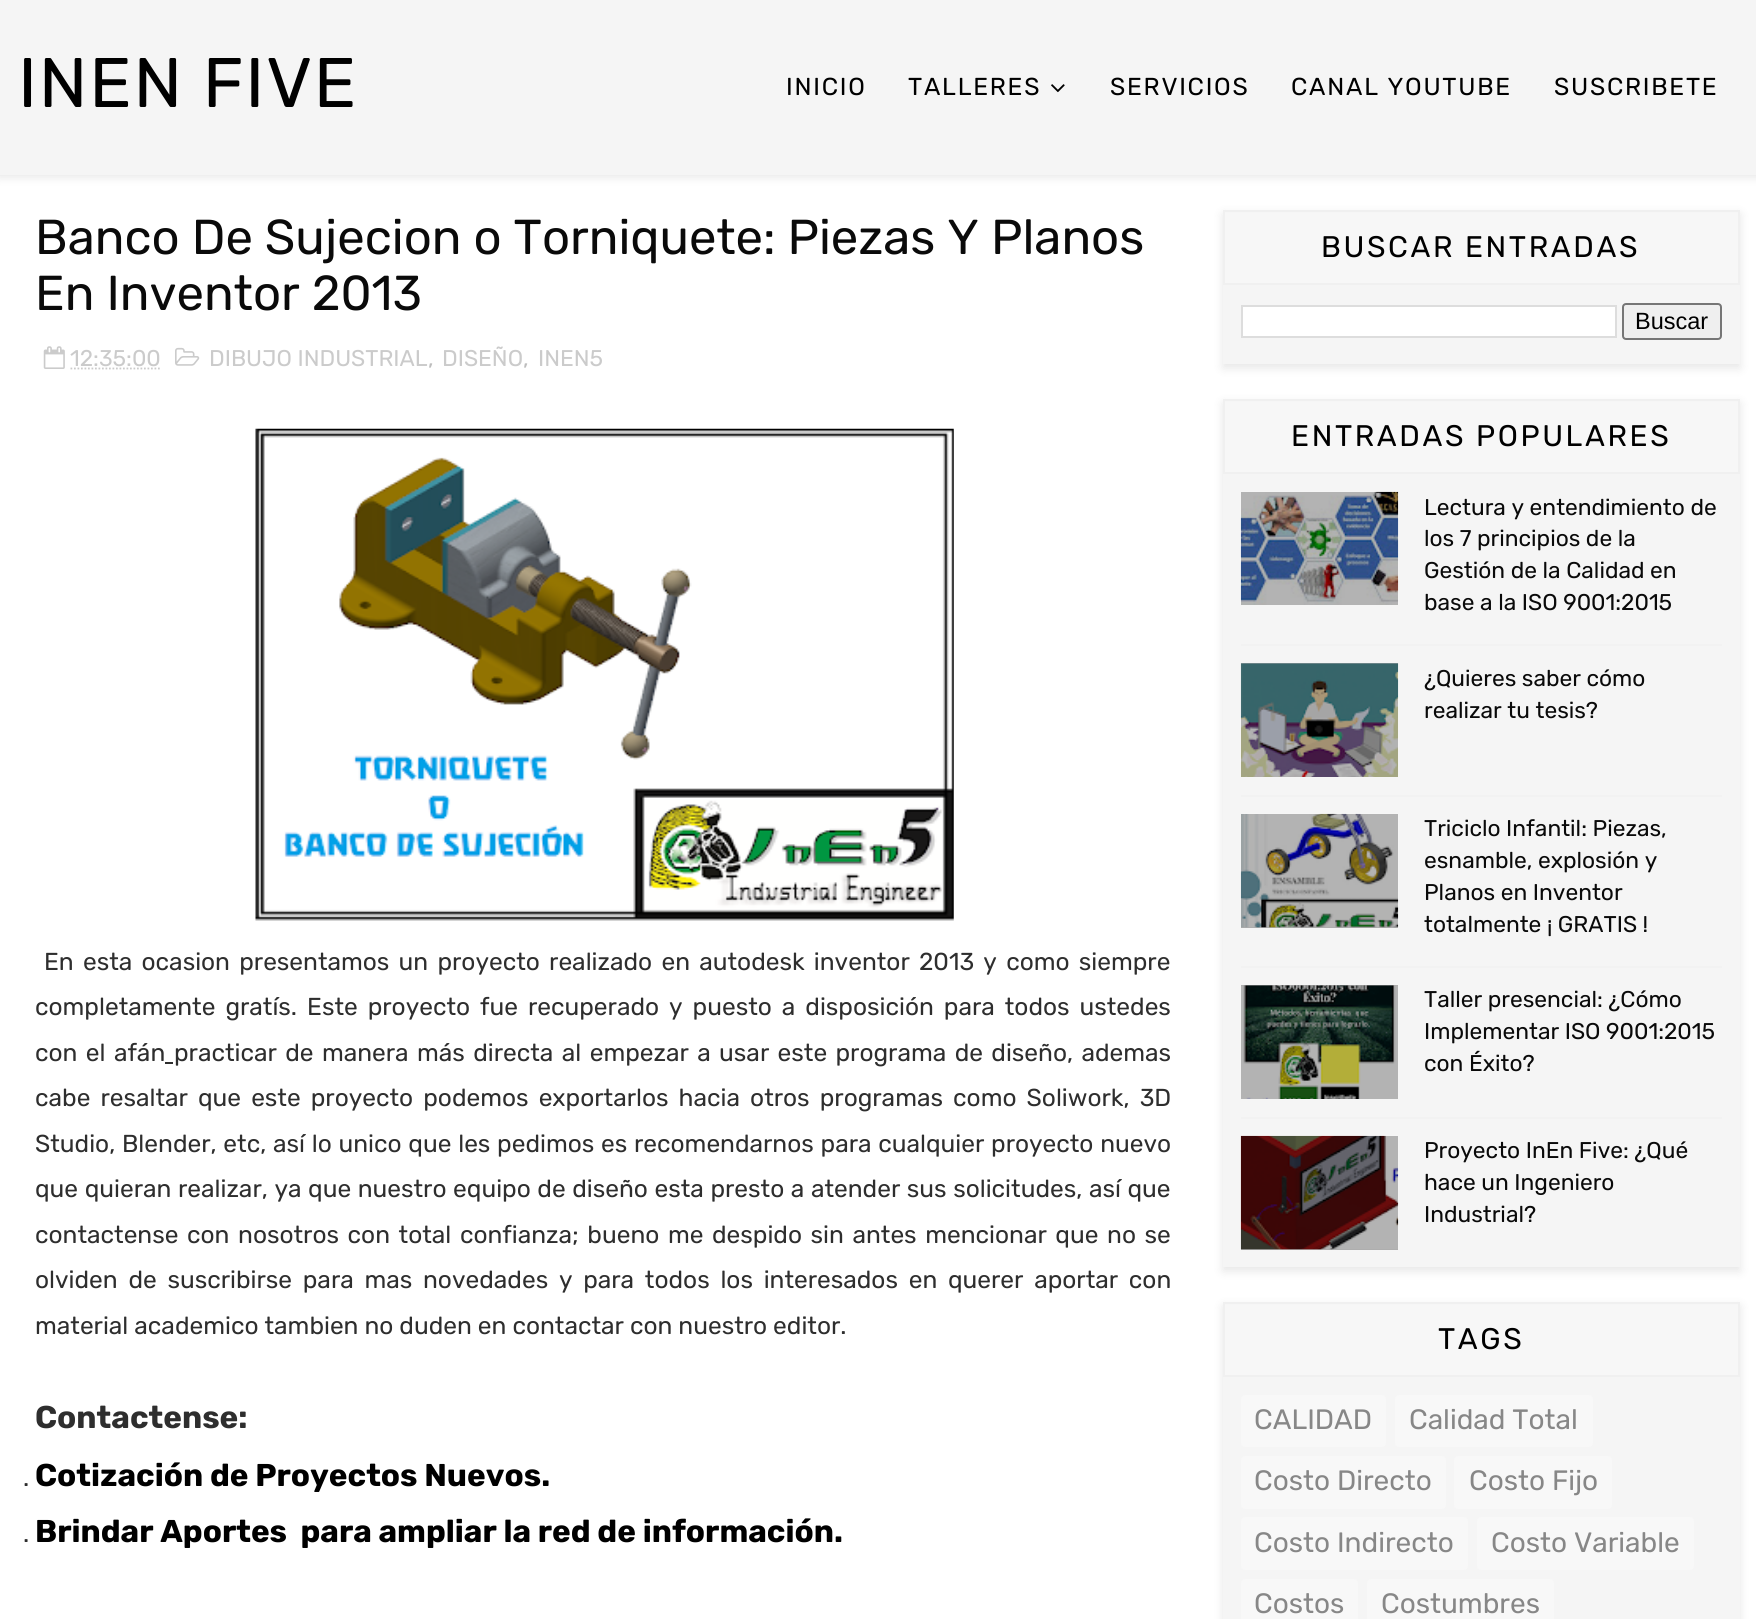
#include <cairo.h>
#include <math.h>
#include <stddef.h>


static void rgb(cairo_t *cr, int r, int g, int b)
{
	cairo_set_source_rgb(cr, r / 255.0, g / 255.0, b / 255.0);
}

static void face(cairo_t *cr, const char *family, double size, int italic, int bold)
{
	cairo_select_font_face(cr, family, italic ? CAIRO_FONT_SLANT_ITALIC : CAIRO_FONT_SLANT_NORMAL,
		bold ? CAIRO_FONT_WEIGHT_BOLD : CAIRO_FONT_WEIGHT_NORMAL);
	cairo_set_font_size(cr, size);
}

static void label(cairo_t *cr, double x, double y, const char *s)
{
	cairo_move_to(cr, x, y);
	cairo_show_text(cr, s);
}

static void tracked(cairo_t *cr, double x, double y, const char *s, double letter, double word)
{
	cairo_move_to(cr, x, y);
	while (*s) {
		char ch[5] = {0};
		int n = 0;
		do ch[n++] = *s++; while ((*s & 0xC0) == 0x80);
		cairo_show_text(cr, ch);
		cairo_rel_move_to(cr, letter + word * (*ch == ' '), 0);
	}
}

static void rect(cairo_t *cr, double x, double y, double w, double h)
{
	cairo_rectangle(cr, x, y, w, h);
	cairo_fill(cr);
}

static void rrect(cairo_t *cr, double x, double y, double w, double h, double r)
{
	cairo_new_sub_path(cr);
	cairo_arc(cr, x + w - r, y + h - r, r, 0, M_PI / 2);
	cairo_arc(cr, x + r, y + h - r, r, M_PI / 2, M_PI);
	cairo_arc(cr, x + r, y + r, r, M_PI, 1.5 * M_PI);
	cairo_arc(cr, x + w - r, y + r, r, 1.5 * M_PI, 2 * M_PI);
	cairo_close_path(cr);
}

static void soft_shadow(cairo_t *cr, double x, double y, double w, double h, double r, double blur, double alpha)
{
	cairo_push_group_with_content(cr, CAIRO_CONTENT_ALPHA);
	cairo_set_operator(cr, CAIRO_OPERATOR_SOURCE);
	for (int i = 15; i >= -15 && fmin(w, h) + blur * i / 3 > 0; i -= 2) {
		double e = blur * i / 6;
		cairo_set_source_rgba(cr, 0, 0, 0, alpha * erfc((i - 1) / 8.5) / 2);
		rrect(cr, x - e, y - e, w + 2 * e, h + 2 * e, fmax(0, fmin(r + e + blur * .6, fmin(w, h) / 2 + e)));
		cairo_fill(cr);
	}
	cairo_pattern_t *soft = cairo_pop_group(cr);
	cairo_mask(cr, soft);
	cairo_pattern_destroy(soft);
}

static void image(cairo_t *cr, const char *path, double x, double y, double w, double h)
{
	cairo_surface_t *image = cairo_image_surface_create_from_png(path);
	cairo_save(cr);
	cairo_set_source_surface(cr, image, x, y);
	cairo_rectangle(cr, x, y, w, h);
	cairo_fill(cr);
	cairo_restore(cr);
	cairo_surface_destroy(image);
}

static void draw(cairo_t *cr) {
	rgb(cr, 255, 255, 255);
	cairo_paint(cr);
	rgb(cr, 0, 0, 0);
	soft_shadow(cr, -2, -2, 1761, 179, 0, 5, 0.1);
	rgb(cr, 245, 245, 245);
	rect(cr, 0, 0, 1756, 175);
	face(cr, "Rubik", 70, 0, 0);
	rgb(cr, 0, 0, 0);
	tracked(cr, 18, 107, "INEN FIVE", 1.75, 0);
	face(cr, "Rubik", 24.5, 0, 0);
	tracked(cr, 786, 95, "INICIO", 1.75, 0);
	tracked(cr, 908, 95, "TALLERES", 1.75, 0);
	image(cr, "image0.png", 1051, 84, 14, 9);
	tracked(cr, 1110, 95, "SERVICIOS", 1.75, 0);
	tracked(cr, 1291, 95, "CANAL YOUTUBE", 1.75, 0);
	tracked(cr, 1554, 95, "SUSCRIBETE", 1.75, 0);
	face(cr, "Rubik", 49, 0, 0);
	rgb(cr, 10, 10, 10);
	label(cr, 35, 254, "Banco De Sujecion o Torniquete: Piezas Y Planos");
	label(cr, 35, 310, "En Inventor 2013");
	image(cr, "image1.png", 43, 346, 22, 23);
	face(cr, "Rubik", 22.75, 0, 0);
	rgb(cr, 203, 203, 203);
	label(cr, 70, 366, "12:35:00");
	cairo_new_path(cr);
	cairo_move_to(cr, 70.5, 368.5);
	cairo_line_to(cr, 161.5, 368.5);
	cairo_set_line_width(cr, 1.8);
	cairo_set_dash(cr, (double[]){1.75, 1.75}, 2, 0);
	cairo_stroke(cr);
	image(cr, "image2.png", 175, 347, 25, 19);
	label(cr, 209, 366, "DIBUJO INDUSTRIAL");
	rgb(cr, 189, 189, 189);
	label(cr, 428, 366, ",");
	rgb(cr, 203, 203, 203);
	label(cr, 442, 366, "DISEÑO");
	rgb(cr, 189, 189, 189);
	label(cr, 523, 366, ",");
	rgb(cr, 203, 203, 203);
	label(cr, 538, 366, "INEN5");
	image(cr, "image3.png", 255, 428, 699, 493);
	face(cr, "Rubik", 24.5, 0, 0);
	rgb(cr, 46, 46, 46);
	tracked(cr, 44, 970, "En esta ocasion presentamos un proyecto realizado en autodesk inventor 2013 y como siempre", 0, 3.25);
	tracked(cr, 35, 1015, "completamente gratís. Este proyecto fue recuperado y puesto a disposición para todos ustedes", 0, 4);
	tracked(cr, 35, 1061, "con el afán", 0, 2.4);
	rect(cr, 165, 1062, 8, 2);
	tracked(cr, 174, 1061, "practicar de manera más directa al empezar a usar este programa de diseño, ademas", 0, 2.4);
	tracked(cr, 35, 1106, "cabe resaltar que este proyecto podemos exportarlos hacia otros programas como Soliwork, 3D", 0, 4.1);
	tracked(cr, 35, 1152, "Studio, Blender, etc, así lo unico que les pedimos es recomendarnos para cualquier proyecto nuevo", 0, 0.75);
	tracked(cr, 35, 1197, "que quieran realizar, ya que nuestro equipo de diseño esta presto a atender sus solicitudes, así que", 0, 0.6);
	tracked(cr, 35, 1243, "contactense con nosotros con total confianza; bueno me despido sin antes mencionar que no se", 0, 2.6);
	tracked(cr, 35, 1288, "olviden de suscribirse para mas novedades y para todos los interesados en querer aportar con", 0, 4.75);
	label(cr, 35, 1334, "material academico tambien no duden en contactar con nuestro editor.");
	face(cr, "Rubik", 31.5, 0, 1);
	label(cr, 35, 1428, "Contactense:");
	face(cr, "Rubik", 24.5, 0, 0);
	label(cr, 23, 1486, ".");
	face(cr, "Rubik", 31.5, 0, 1);
	rgb(cr, 0, 0, 0);
	label(cr, 35, 1486, "Cotización de Proyectos Nuevos.");
	face(cr, "Rubik", 24.5, 0, 0);
	rgb(cr, 46, 46, 46);
	label(cr, 23, 1542, ".");
	face(cr, "Rubik", 31.5, 0, 1);
	rgb(cr, 0, 0, 0);
	label(cr, 35, 1542, "Brindar Aportes  para ampliar la red de información.");
	rgb(cr, 0, 0, 0);
	soft_shadow(cr, 1223, 214, 517, 154, 0, 5, 0.1);
	rgb(cr, 245, 245, 245);
	rect(cr, 1223, 285, 517, 79);
	rgb(cr, 247, 247, 247);
	rect(cr, 1225, 213, 513, 70);
	cairo_rectangle(cr, 1224, 211, 515, 73);
	rgb(cr, 240, 240, 240);
	cairo_set_line_width(cr, 2);
	cairo_set_dash(cr, NULL, 0, 0);
	cairo_stroke(cr);
	face(cr, "Rubik", 29.75, 0, 0);
	rgb(cr, 0, 0, 0);
	tracked(cr, 1321, 257, "BUSCAR ENTRADAS", 2.6, 0);
	rgb(cr, 255, 255, 255);
	cairo_rectangle(cr, 1242, 306, 374, 31);
	cairo_fill_preserve(cr);
	rgb(cr, 221, 221, 221);
	cairo_stroke(cr);
	rgb(cr, 239, 239, 239);
	rrect(cr, 1623, 304, 98, 35, 3);
	cairo_fill_preserve(cr);
	rgb(cr, 118, 118, 118);
	cairo_stroke(cr);
	face(cr, "Liberation Sans", 23.5, 0, 0);
	rgb(cr, 0, 0, 0);
	label(cr, 1635, 329, "Buscar");
	rgb(cr, 0, 0, 0);
	soft_shadow(cr, 1223, 403, 517, 868, 0, 5, 0.1);
	rgb(cr, 245, 245, 245);
	rect(cr, 1223, 474, 517, 793);
	rgb(cr, 172, 172, 172);
	rect(cr, 1241, 1249, 157, 1);
	rect(cr, 1241, 985, 157, 1);
	rect(cr, 1241, 927, 157, 1);
	rect(cr, 1241, 663, 157, 1);
	rgb(cr, 247, 247, 247);
	rect(cr, 1225, 402, 513, 70);
	cairo_rectangle(cr, 1224, 400, 515, 73);
	rgb(cr, 240, 240, 240);
	cairo_stroke(cr);
	face(cr, "Rubik", 29.75, 0, 0);
	rgb(cr, 0, 0, 0);
	tracked(cr, 1291, 446, "ENTRADAS POPULARES", 2.6, 0);
	image(cr, "image4.png", 1240, 491, 159, 114);
	face(cr, "Rubik", 22.75, 0, 0);
	rgb(cr, 10, 10, 10);
	label(cr, 1424, 515, "Lectura y entendimiento de");
	label(cr, 1424, 546, "los 7 principios de la");
	label(cr, 1424, 578, "Gestión de la Calidad en");
	label(cr, 1424, 610, "base a la ISO 9001:2015");
	rgb(cr, 242, 242, 242);
	rect(cr, 1241, 644, 481, 2);
	image(cr, "image5.png", 1240, 663, 159, 114);
	rgb(cr, 10, 10, 10);
	label(cr, 1424, 686, "¿Quieres saber cómo");
	label(cr, 1424, 718, "realizar tu tesis?");
	rgb(cr, 242, 242, 242);
	rect(cr, 1241, 795, 481, 2);
	image(cr, "image6.png", 1240, 813, 159, 115);
	rgb(cr, 10, 10, 10);
	label(cr, 1424, 836, "Triciclo Infantil: Piezas,");
	label(cr, 1424, 868, "esnamble, explosión y");
	label(cr, 1424, 900, "Planos en Inventor");
	label(cr, 1424, 932, "totalmente ¡ GRATIS !");
	rgb(cr, 242, 242, 242);
	rect(cr, 1241, 966, 481, 2);
	image(cr, "image7.png", 1241, 985, 157, 114);
	rgb(cr, 10, 10, 10);
	label(cr, 1424, 1007, "Taller presencial: ¿Cómo");
	label(cr, 1424, 1039, "Implementar ISO 9001:2015");
	label(cr, 1424, 1071, "con Éxito?");
	rgb(cr, 242, 242, 242);
	rect(cr, 1241, 1117, 481, 2);
	image(cr, "image8.png", 1240, 1135, 159, 115);
	rgb(cr, 10, 10, 10);
	label(cr, 1424, 1158, "Proyecto InEn Five: ¿Qué");
	label(cr, 1424, 1190, "hace un Ingeniero");
	label(cr, 1424, 1222, "Industrial?");
	rgb(cr, 0, 0, 0);
	soft_shadow(cr, 1223, 1306, 517, 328, 0, 5, 0.1);
	rgb(cr, 245, 245, 245);
	rect(cr, 1223, 1377, 517, 242);
	rgb(cr, 247, 247, 247);
	rect(cr, 1225, 1305, 513, 70);
	cairo_rectangle(cr, 1224, 1303, 515, 73);
	rgb(cr, 240, 240, 240);
	cairo_stroke(cr);
	face(cr, "Rubik", 29.75, 0, 0);
	rgb(cr, 0, 0, 0);
	tracked(cr, 1438, 1349, "TAGS", 2.6, 0);
	rgb(cr, 248, 248, 248);
	rrect(cr, 1241, 1395, 145, 52, 4);
	cairo_fill(cr);
	face(cr, "Rubik", 28, 0, 0);
	rgb(cr, 135, 135, 135);
	label(cr, 1254, 1429, "CALIDAD");
	rgb(cr, 248, 248, 248);
	rrect(cr, 1395, 1395, 198, 52, 4);
	cairo_fill(cr);
	rgb(cr, 135, 135, 135);
	label(cr, 1409, 1429, "Calidad Total");
	rgb(cr, 248, 248, 248);
	rrect(cr, 1241, 1456, 205, 53, 4);
	cairo_fill(cr);
	rgb(cr, 135, 135, 135);
	label(cr, 1254, 1490, "Costo Directo");
	rgb(cr, 248, 248, 248);
	rrect(cr, 1454, 1456, 158, 53, 4);
	cairo_fill(cr);
	rgb(cr, 135, 135, 135);
	label(cr, 1469, 1490, "Costo Fijo");
	rgb(cr, 248, 248, 248);
	rrect(cr, 1241, 1517, 227, 53, 4);
	cairo_fill(cr);
	rgb(cr, 135, 135, 135);
	label(cr, 1254, 1552, "Costo Indirecto");
	rgb(cr, 248, 248, 248);
	rrect(cr, 1477, 1517, 217, 53, 4);
	cairo_fill(cr);
	rgb(cr, 135, 135, 135);
	label(cr, 1491, 1552, "Costo Variable");
	rgb(cr, 248, 248, 248);
	rrect(cr, 1241, 1579, 117, 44, 4);
	cairo_fill(cr);
	rgb(cr, 135, 135, 135);
	label(cr, 1254, 1613, "Costos");
	rgb(cr, 248, 248, 248);
	rrect(cr, 1367, 1579, 187, 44, 4);
	cairo_fill(cr);
	rgb(cr, 135, 135, 135);
	label(cr, 1381, 1613, "Costumbres");
}

int main(void) {
	cairo_surface_t *surface = cairo_image_surface_create(CAIRO_FORMAT_RGB24, 1756, 1619);
	cairo_t *cr = cairo_create(surface);
	cairo_font_options_t *options = cairo_font_options_create();
	cairo_font_options_set_hint_metrics(options, CAIRO_HINT_METRICS_OFF);
	cairo_font_options_set_hint_style(options, CAIRO_HINT_STYLE_NONE);
	cairo_set_font_options(cr, options);
	cairo_set_miter_limit(cr, 4);
	draw(cr);
	cairo_surface_write_to_png(surface, "render.png");
	cairo_font_options_destroy(options);
	cairo_destroy(cr);
	cairo_surface_destroy(surface);
	return 0;
}
